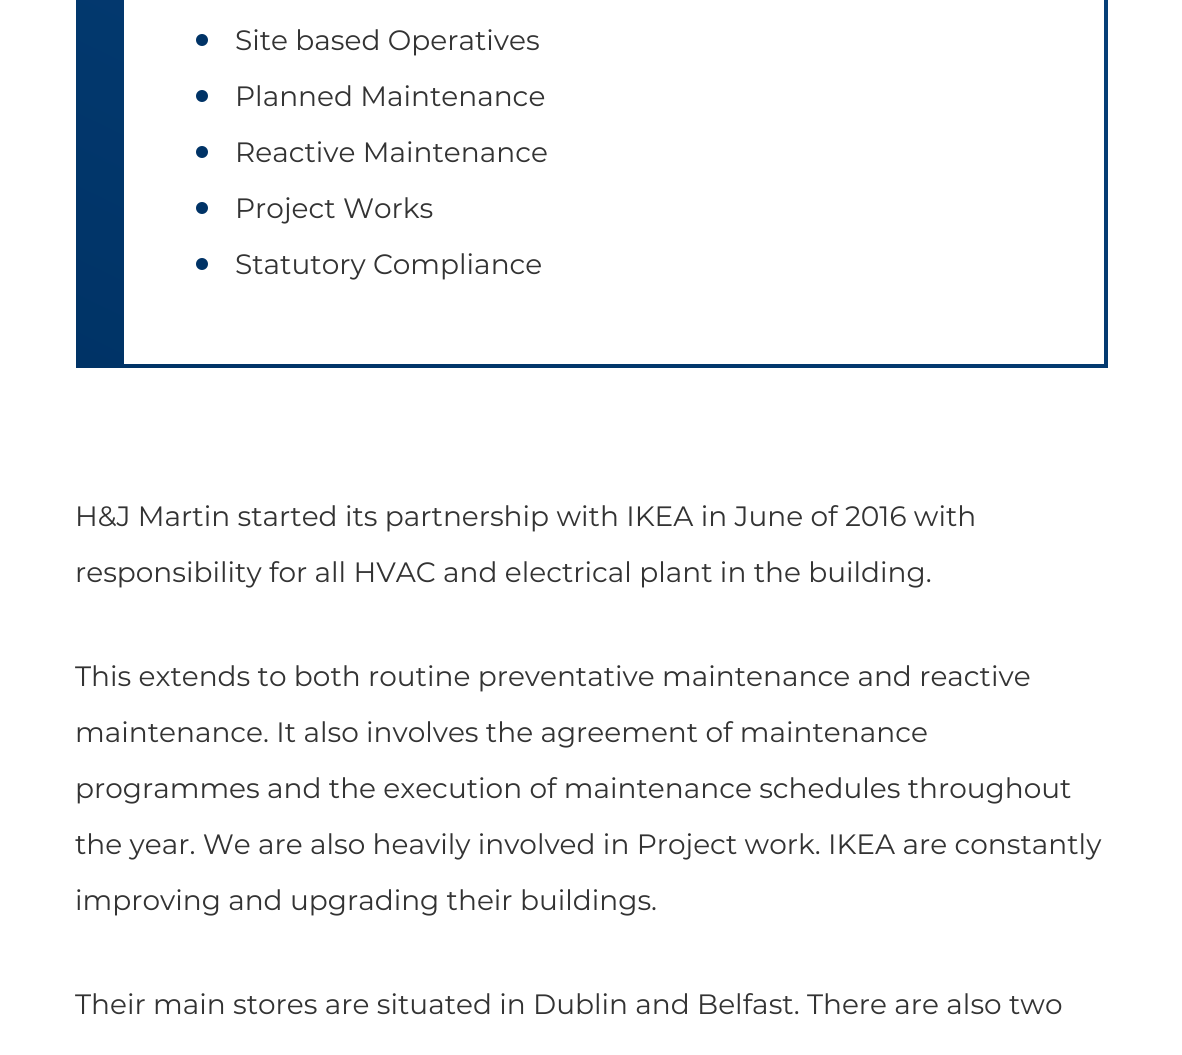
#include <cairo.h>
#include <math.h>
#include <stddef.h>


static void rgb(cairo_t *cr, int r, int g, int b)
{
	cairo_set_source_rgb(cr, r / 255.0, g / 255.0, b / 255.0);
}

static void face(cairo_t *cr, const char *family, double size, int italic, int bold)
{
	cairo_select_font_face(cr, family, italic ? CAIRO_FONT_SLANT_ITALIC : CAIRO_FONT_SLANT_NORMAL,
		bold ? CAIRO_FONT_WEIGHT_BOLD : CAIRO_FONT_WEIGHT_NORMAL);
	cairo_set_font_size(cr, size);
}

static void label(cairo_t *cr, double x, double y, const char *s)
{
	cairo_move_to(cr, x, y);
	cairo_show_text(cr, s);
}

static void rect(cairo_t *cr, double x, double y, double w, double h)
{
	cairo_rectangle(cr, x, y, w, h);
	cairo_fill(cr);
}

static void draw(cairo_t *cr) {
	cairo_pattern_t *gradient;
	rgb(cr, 255, 255, 255);
	cairo_paint(cr);
	gradient = cairo_pattern_create_linear(794, -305, 390, 521);
	cairo_pattern_add_color_stop_rgba(gradient, 0, 0.027, 0.255, 0.482, 1);
	cairo_pattern_add_color_stop_rgba(gradient, 1, 0, 0.2, 0.4, 1);
	cairo_set_source(cr, gradient);
	cairo_pattern_destroy(gradient);
	rect(cr, 76, 0, 1032, 368);
	rgb(cr, 255, 255, 255);
	rect(cr, 124, 0, 980, 364);
	rgb(cr, 0, 51, 102);
	cairo_arc(cr, 202, 40, 6, 0, 2 * M_PI);
	cairo_fill(cr);
	face(cr, "Montserrat", 28, 0, 0);
	rgb(cr, 51, 51, 51);
	label(cr, 235, 50, "Site based Operatives");
	rgb(cr, 0, 51, 102);
	cairo_new_path(cr);
	cairo_arc(cr, 202, 96, 6, 0, 2 * M_PI);
	cairo_fill(cr);
	rgb(cr, 51, 51, 51);
	label(cr, 235, 106, "Planned Maintenance");
	rgb(cr, 0, 51, 102);
	cairo_new_path(cr);
	cairo_arc(cr, 202, 152, 6, 0, 2 * M_PI);
	cairo_fill(cr);
	rgb(cr, 51, 51, 51);
	label(cr, 235, 162, "Reactive Maintenance");
	rgb(cr, 0, 51, 102);
	cairo_new_path(cr);
	cairo_arc(cr, 202, 208, 6, 0, 2 * M_PI);
	cairo_fill(cr);
	rgb(cr, 51, 51, 51);
	label(cr, 235, 218, "Project Works");
	rgb(cr, 0, 51, 102);
	cairo_new_path(cr);
	cairo_arc(cr, 202, 264, 6, 0, 2 * M_PI);
	cairo_fill(cr);
	rgb(cr, 51, 51, 51);
	label(cr, 235, 274, "Statutory Compliance");
	label(cr, 75, 526, "H&J Martin started its partnership with IKEA in June of 2016 with");
	label(cr, 75, 582, "responsibility for all HVAC and electrical plant in the building.");
	label(cr, 75, 686, "This extends to both routine preventative maintenance and reactive");
	label(cr, 75, 742, "maintenance. It also involves the agreement of maintenance");
	label(cr, 75, 798, "programmes and the execution of maintenance schedules throughout");
	label(cr, 75, 854, "the year. We are also heavily involved in Project work. IKEA are constantly");
	label(cr, 75, 910, "improving and upgrading their buildings.");
	label(cr, 75, 1014, "Their main stores are situated in Dublin and Belfast. There are also two");
}

int main(void) {
	cairo_surface_t *surface = cairo_image_surface_create(CAIRO_FORMAT_RGB24, 1182, 1055);
	cairo_t *cr = cairo_create(surface);
	cairo_font_options_t *options = cairo_font_options_create();
	cairo_font_options_set_hint_metrics(options, CAIRO_HINT_METRICS_OFF);
	cairo_font_options_set_hint_style(options, CAIRO_HINT_STYLE_NONE);
	cairo_set_font_options(cr, options);
	cairo_set_miter_limit(cr, 4);
	draw(cr);
	cairo_surface_write_to_png(surface, "render.png");
	cairo_font_options_destroy(options);
	cairo_destroy(cr);
	cairo_surface_destroy(surface);
	return 0;
}
